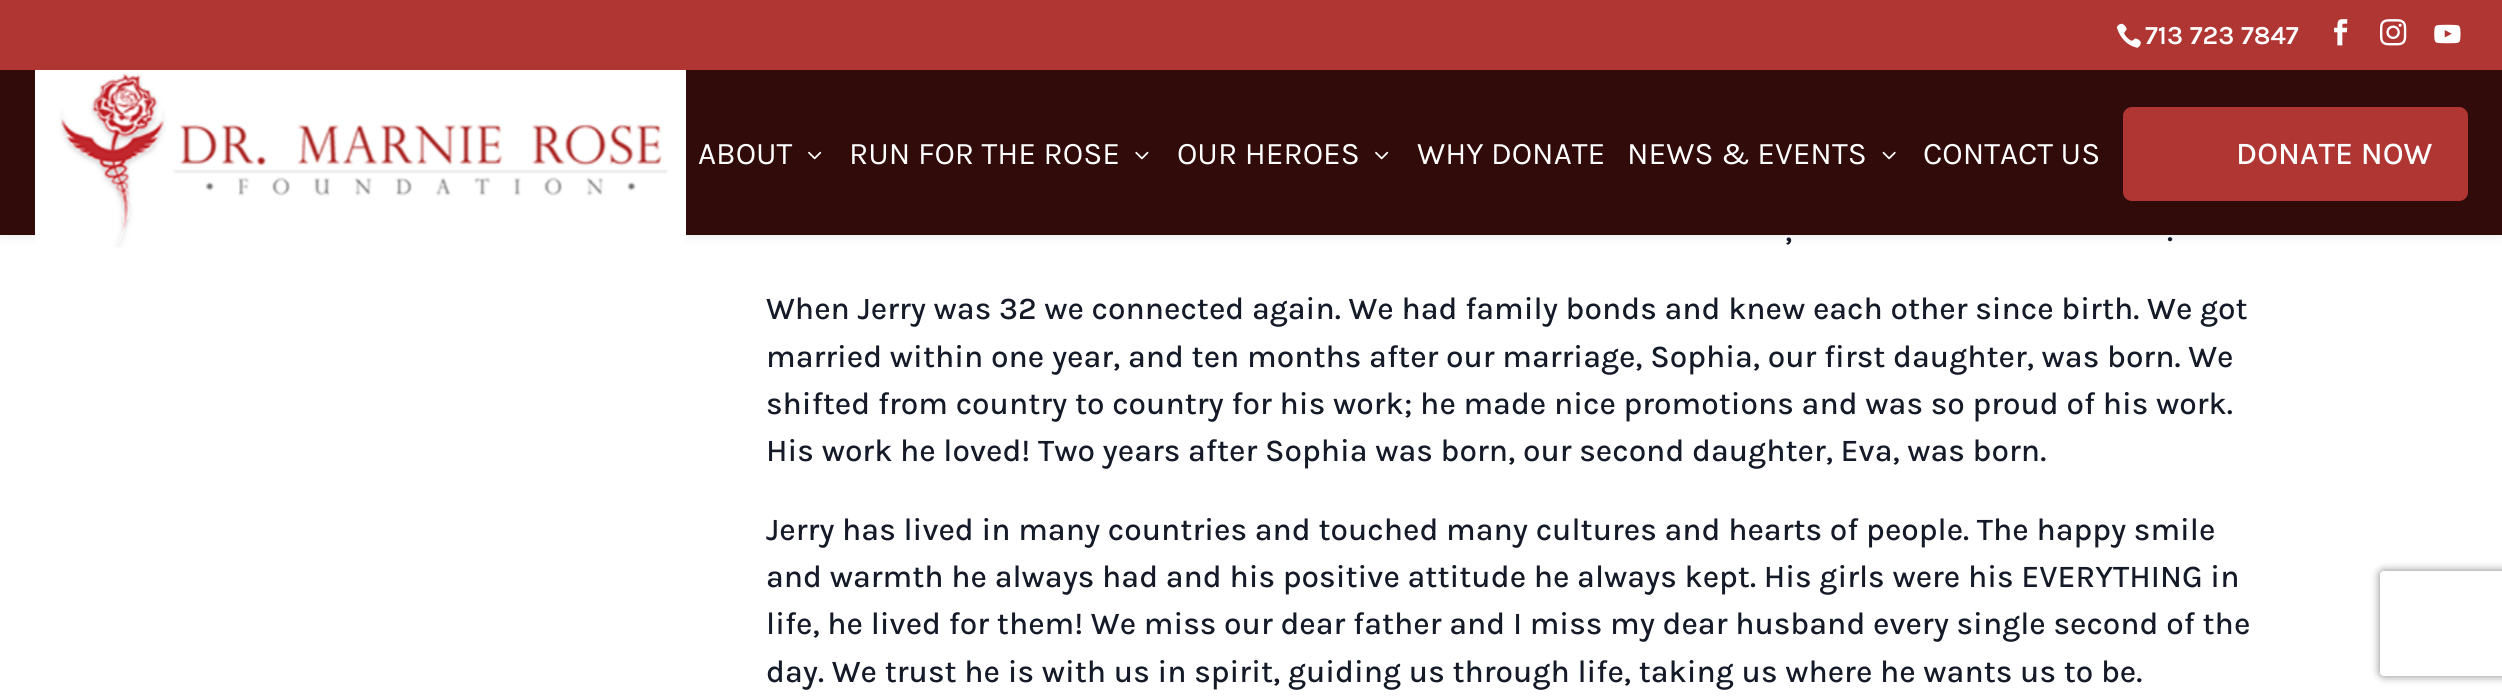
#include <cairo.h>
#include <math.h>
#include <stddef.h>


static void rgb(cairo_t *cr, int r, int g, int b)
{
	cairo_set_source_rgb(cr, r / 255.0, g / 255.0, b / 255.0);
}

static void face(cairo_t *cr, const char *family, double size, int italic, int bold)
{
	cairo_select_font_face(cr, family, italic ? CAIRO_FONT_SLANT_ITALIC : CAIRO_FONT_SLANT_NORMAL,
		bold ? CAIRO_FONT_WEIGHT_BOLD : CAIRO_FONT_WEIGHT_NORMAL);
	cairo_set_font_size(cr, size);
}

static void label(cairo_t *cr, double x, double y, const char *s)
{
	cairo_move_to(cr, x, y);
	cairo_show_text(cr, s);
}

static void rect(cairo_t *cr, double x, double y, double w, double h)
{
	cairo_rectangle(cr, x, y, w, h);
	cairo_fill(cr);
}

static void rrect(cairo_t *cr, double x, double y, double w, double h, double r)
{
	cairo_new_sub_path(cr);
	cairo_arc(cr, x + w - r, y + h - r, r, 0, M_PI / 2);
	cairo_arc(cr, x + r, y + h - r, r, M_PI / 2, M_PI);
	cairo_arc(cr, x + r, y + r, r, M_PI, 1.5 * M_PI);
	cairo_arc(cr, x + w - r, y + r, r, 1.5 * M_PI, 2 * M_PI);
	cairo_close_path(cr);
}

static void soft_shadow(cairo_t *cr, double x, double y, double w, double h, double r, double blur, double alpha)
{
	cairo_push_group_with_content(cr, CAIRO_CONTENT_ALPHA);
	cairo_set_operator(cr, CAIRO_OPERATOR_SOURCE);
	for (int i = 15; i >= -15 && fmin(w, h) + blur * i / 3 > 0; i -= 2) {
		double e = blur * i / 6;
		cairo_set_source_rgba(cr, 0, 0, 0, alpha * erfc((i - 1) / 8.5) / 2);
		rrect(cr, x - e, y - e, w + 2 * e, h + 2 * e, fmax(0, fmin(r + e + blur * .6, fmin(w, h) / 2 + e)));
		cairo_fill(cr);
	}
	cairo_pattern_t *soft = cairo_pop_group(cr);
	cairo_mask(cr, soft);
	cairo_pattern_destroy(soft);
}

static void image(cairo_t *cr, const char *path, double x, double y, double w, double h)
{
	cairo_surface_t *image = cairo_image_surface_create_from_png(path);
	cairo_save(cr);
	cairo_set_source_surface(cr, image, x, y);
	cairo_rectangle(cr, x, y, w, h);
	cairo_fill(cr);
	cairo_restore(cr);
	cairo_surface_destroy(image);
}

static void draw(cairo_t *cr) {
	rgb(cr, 255, 255, 255);
	cairo_paint(cr);
	rgb(cr, 0, 0, 0);
	soft_shadow(cr, 0, 70, 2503, 165, 0, 6, 0.1);
	rgb(cr, 176, 54, 52);
	rect(cr, 0, 0, 2502, 70);
	image(cr, "image0.png", 2116, 23, 25, 25);
	face(cr, "Karla SemiBold", 26.25, 0, 0);
	rgb(cr, 255, 255, 255);
	label(cr, 2145, 44, "713 723 7847");
	image(cr, "image1.png", 2334, 19, 14, 27);
	image(cr, "image2.png", 2380, 19, 27, 27);
	image(cr, "image3.png", 2434, 24, 27, 20);
	rgb(cr, 49, 11, 10);
	rect(cr, 0, 70, 2502, 165);
	rgb(cr, 255, 255, 255);
	cairo_new_path(cr);
	cairo_move_to(cr, 35, 70);
	cairo_line_to(cr, 686, 70);
	cairo_line_to(cr, 686, 236);
	cairo_curve_to(cr, 686, 246, 678, 254, 668, 254);
	cairo_line_to(cr, 53, 254);
	cairo_curve_to(cr, 43, 254, 35, 246, 35, 236);
	cairo_close_path(cr);
	cairo_fill(cr);
	image(cr, "image4.png", 59, 72, 609, 176);
	face(cr, "Karla", 31.5, 0, 0);
	label(cr, 698, 164, "ABOUT");
	image(cr, "image5.png", 808, 151, 14, 9);
	label(cr, 849, 164, "RUN FOR THE ROSE");
	image(cr, "image6.png", 1135, 151, 14, 9);
	label(cr, 1177, 164, "OUR HEROES");
	image(cr, "image5.png", 1375, 151, 14, 9);
	label(cr, 1417, 164, "WHY DONATE");
	label(cr, 1627, 164, "NEWS & EVENTS");
	image(cr, "image7.png", 1882, 151, 14, 9);
	label(cr, 1923, 164, "CONTACT US");
	rgb(cr, 176, 54, 52);
	rrect(cr, 2123, 107, 345, 94, 9);
	cairo_fill(cr);
	face(cr, "Karla Medium", 31.5, 0, 0);
	rgb(cr, 255, 255, 255);
	label(cr, 2236, 164, "DONATE NOW");
	rgb(cr, 20, 26, 39);
	label(cr, 1785, 241, ",");
	label(cr, 2167, 241, ".");
	label(cr, 766, 319, "When Jerry was 32 we connected again. We had family bonds and knew each other since birth. We got");
	label(cr, 766, 367, "married within one year, and ten months after our marriage, Sophia, our first daughter, was born. We");
	label(cr, 766, 414, "shifted from country to country for his work; he made nice promotions and was so proud of his work.");
	label(cr, 766, 461, "His work he loved! Two years after Sophia was born, our second daughter, Eva, was born.");
	label(cr, 766, 540, "Jerry has lived in many countries and touched many cultures and hearts of people. The happy smile");
	label(cr, 766, 587, "and warmth he always had and his positive attitude he always kept. His girls were his EVERYTHING in");
	label(cr, 766, 634, "life, he lived for them! We miss our dear father and I miss my dear husband every single second of the");
	label(cr, 766, 682, "day. We trust he is with us in spirit, guiding us through life, taking us where he wants us to be.");
	cairo_save(cr);
	cairo_set_fill_rule(cr, CAIRO_FILL_RULE_EVEN_ODD);
	cairo_new_path(cr);
	cairo_move_to(cr, 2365, 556);
	cairo_line_to(cr, 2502, 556);
	cairo_line_to(cr, 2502, 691);
	cairo_line_to(cr, 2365, 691);
	cairo_close_path(cr);
	cairo_move_to(cr, 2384, 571);
	cairo_line_to(cr, 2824, 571);
	cairo_curve_to(cr, 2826, 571, 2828, 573, 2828, 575);
	cairo_line_to(cr, 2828, 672);
	cairo_curve_to(cr, 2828, 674, 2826, 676, 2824, 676);
	cairo_line_to(cr, 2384, 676);
	cairo_curve_to(cr, 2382, 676, 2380, 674, 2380, 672);
	cairo_line_to(cr, 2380, 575);
	cairo_curve_to(cr, 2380, 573, 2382, 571, 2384, 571);
	cairo_close_path(cr);
	cairo_clip(cr);
	rgb(cr, 128, 128, 128);
	soft_shadow(cr, 2380, 571, 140, 105, 4, 4.5, 1);
	cairo_restore(cr);
}

int main(void) {
	cairo_surface_t *surface = cairo_image_surface_create(CAIRO_FORMAT_RGB24, 2502, 700);
	cairo_t *cr = cairo_create(surface);
	cairo_font_options_t *options = cairo_font_options_create();
	cairo_font_options_set_hint_metrics(options, CAIRO_HINT_METRICS_OFF);
	cairo_font_options_set_hint_style(options, CAIRO_HINT_STYLE_NONE);
	cairo_set_font_options(cr, options);
	cairo_set_miter_limit(cr, 4);
	draw(cr);
	cairo_surface_write_to_png(surface, "render.png");
	cairo_font_options_destroy(options);
	cairo_destroy(cr);
	cairo_surface_destroy(surface);
	return 0;
}
